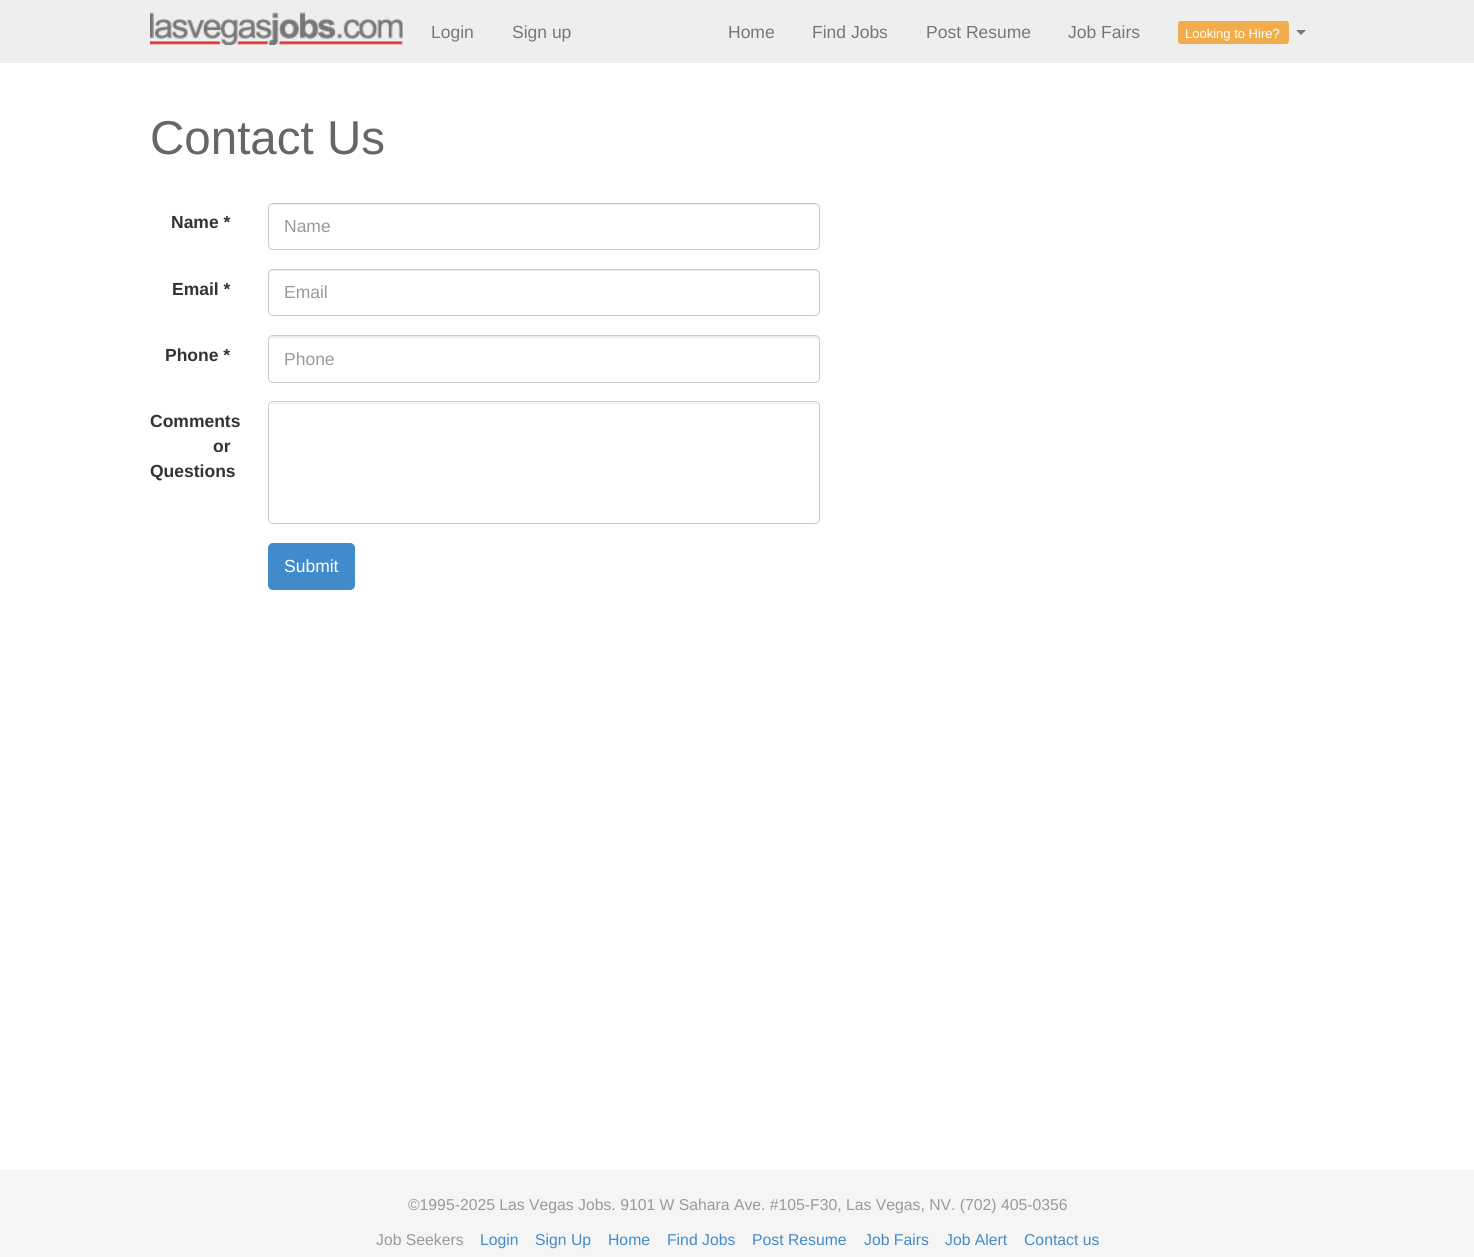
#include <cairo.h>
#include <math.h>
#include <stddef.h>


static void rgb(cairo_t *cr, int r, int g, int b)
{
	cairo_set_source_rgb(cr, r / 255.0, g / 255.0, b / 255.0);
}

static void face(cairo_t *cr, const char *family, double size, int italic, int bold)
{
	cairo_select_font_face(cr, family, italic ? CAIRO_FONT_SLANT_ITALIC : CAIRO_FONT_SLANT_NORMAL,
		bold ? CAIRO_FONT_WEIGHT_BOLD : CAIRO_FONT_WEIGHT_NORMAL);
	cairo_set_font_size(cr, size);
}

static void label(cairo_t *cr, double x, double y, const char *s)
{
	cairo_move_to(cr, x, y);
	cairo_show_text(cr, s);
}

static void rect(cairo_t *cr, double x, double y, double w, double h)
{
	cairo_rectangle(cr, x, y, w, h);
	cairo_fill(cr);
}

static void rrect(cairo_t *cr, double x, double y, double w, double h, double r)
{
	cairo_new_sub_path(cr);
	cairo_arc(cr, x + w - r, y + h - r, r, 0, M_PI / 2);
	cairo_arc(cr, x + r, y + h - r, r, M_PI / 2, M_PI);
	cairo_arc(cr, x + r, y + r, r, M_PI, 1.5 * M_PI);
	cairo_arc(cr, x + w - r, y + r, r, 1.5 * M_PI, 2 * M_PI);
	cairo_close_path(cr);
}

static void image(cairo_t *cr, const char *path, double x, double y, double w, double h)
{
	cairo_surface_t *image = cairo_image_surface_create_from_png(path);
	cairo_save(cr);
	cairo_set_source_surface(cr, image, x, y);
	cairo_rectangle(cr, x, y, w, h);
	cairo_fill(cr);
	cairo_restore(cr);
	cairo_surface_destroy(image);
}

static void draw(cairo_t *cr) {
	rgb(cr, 255, 255, 255);
	cairo_paint(cr);
	rgb(cr, 238, 238, 238);
	rect(cr, 0, 0, 1474, 63);
	image(cr, "image0.png", 150, 12, 253, 33);
	face(cr, "Liberation Sans", 17.5, 0, 0);
	rgb(cr, 119, 119, 119);
	label(cr, 431, 38, "Login");
	label(cr, 512, 38, "Sign up");
	label(cr, 728, 38, "Home");
	label(cr, 812, 38, "Find Jobs");
	label(cr, 926, 38, "Post Resume");
	label(cr, 1068, 38, "Job Fairs");
	rgb(cr, 240, 173, 78);
	rrect(cr, 1178, 21, 111, 23, 3);
	cairo_fill(cr);
	face(cr, "Liberation Sans", 13, 0, 0);
	rgb(cr, 255, 255, 255);
	label(cr, 1185, 38, "Looking to Hire?");
	rgb(cr, 119, 119, 119);
	cairo_new_path(cr);
	cairo_move_to(cr, 1296, 30);
	cairo_line_to(cr, 1306, 30);
	cairo_line_to(cr, 1301, 35);
	cairo_close_path(cr);
	cairo_fill(cr);
	face(cr, "Liberation Sans", 47.5, 0, 0);
	rgb(cr, 102, 102, 102);
	label(cr, 150, 154, "Contact Us");
	face(cr, "Liberation Sans", 17.5, 0, 1);
	rgb(cr, 51, 51, 51);
	label(cr, 171, 228, "Name *");
	rgb(cr, 236, 236, 236);
	cairo_new_path(cr);
	cairo_move_to(cr, 272, 205);
	cairo_line_to(cr, 815, 205);
	cairo_curve_to(cr, 817, 205, 819, 207, 819, 209);
	cairo_line_to(cr, 819, 208);
	cairo_curve_to(cr, 819, 206, 817, 204, 815, 204);
	cairo_line_to(cr, 273, 204);
	cairo_curve_to(cr, 271, 204, 269, 206, 269, 208);
	cairo_line_to(cr, 269, 209);
	cairo_curve_to(cr, 269, 207, 270, 205, 272, 205);
	cairo_close_path(cr);
	cairo_fill(cr);
	rrect(cr, 268.5, 203.5, 551, 46, 4.5);
	rgb(cr, 204, 204, 204);
	cairo_set_line_width(cr, 1);
	cairo_stroke(cr);
	face(cr, "Liberation Sans", 17.5, 0, 0);
	rgb(cr, 153, 153, 153);
	label(cr, 284, 232, "Name");
	face(cr, "Liberation Sans", 17.5, 0, 1);
	rgb(cr, 51, 51, 51);
	label(cr, 172, 295, "Email *");
	rgb(cr, 236, 236, 236);
	cairo_new_path(cr);
	cairo_move_to(cr, 272, 271);
	cairo_line_to(cr, 815, 271);
	cairo_curve_to(cr, 817, 271, 819, 273, 819, 275);
	cairo_line_to(cr, 819, 274);
	cairo_curve_to(cr, 819, 272, 817, 270, 815, 270);
	cairo_line_to(cr, 273, 270);
	cairo_curve_to(cr, 271, 270, 269, 272, 269, 274);
	cairo_line_to(cr, 269, 275);
	cairo_curve_to(cr, 269, 273, 270, 271, 272, 271);
	cairo_close_path(cr);
	cairo_fill(cr);
	rrect(cr, 268.5, 269.5, 551, 46, 4.5);
	rgb(cr, 204, 204, 204);
	cairo_stroke(cr);
	face(cr, "Liberation Sans", 17.5, 0, 0);
	rgb(cr, 153, 153, 153);
	label(cr, 284, 298, "Email");
	face(cr, "Liberation Sans", 17.5, 0, 1);
	rgb(cr, 51, 51, 51);
	label(cr, 165, 361, "Phone *");
	rgb(cr, 236, 236, 236);
	cairo_new_path(cr);
	cairo_move_to(cr, 272, 338);
	cairo_line_to(cr, 815, 338);
	cairo_curve_to(cr, 817, 338, 819, 339, 819, 341);
	cairo_line_to(cr, 819, 340);
	cairo_curve_to(cr, 819, 338, 817, 336, 815, 336);
	cairo_line_to(cr, 273, 336);
	cairo_curve_to(cr, 271, 336, 269, 338, 269, 340);
	cairo_line_to(cr, 269, 341);
	cairo_curve_to(cr, 269, 339, 270, 338, 272, 338);
	cairo_close_path(cr);
	cairo_fill(cr);
	rrect(cr, 268.5, 335.5, 551, 47, 4.5);
	rgb(cr, 204, 204, 204);
	cairo_stroke(cr);
	face(cr, "Liberation Sans", 17.5, 0, 0);
	rgb(cr, 153, 153, 153);
	label(cr, 284, 365, "Phone");
	face(cr, "Liberation Sans", 17.5, 0, 1);
	rgb(cr, 51, 51, 51);
	label(cr, 150, 427, "Comments");
	label(cr, 213, 452, "or");
	label(cr, 150, 477, "Questions");
	rgb(cr, 236, 236, 236);
	cairo_new_path(cr);
	cairo_move_to(cr, 272, 404);
	cairo_line_to(cr, 815, 404);
	cairo_curve_to(cr, 817, 404, 819, 405, 819, 408);
	cairo_line_to(cr, 819, 407);
	cairo_curve_to(cr, 819, 405, 817, 403, 815, 403);
	cairo_line_to(cr, 273, 403);
	cairo_curve_to(cr, 271, 403, 269, 405, 269, 407);
	cairo_line_to(cr, 269, 408);
	cairo_curve_to(cr, 269, 405, 270, 404, 272, 404);
	cairo_close_path(cr);
	cairo_fill(cr);
	rrect(cr, 268.5, 401.5, 551, 122, 4.5);
	rgb(cr, 204, 204, 204);
	cairo_stroke(cr);
	rgb(cr, 66, 139, 202);
	rrect(cr, 268.5, 543.5, 86, 46, 4.5);
	cairo_fill_preserve(cr);
	cairo_stroke(cr);
	face(cr, "Liberation Sans", 17.5, 0, 0);
	rgb(cr, 255, 255, 255);
	label(cr, 284, 572, "Submit");
	rgb(cr, 245, 245, 245);
	rect(cr, 0, 1170, 1474, 87);
	face(cr, "Liberation Sans", 15.75, 0, 0);
	rgb(cr, 153, 153, 153);
	label(cr, 408, 1210, "©1995-2025 Las Vegas Jobs. 9101 W Sahara Ave. #105-F30, Las Vegas, NV. (702) 405-0356");
	label(cr, 376, 1245, "Job Seekers");
	rgb(cr, 66, 139, 202);
	label(cr, 480, 1245, "Login");
	label(cr, 535, 1245, "Sign Up");
	label(cr, 608, 1245, "Home");
	label(cr, 667, 1245, "Find Jobs");
	label(cr, 752, 1245, "Post Resume");
	label(cr, 864, 1245, "Job Fairs");
	label(cr, 945, 1245, "Job Alert");
	label(cr, 1024, 1245, "Contact us");
}

int main(void) {
	cairo_surface_t *surface = cairo_image_surface_create(CAIRO_FORMAT_RGB24, 1474, 1257);
	cairo_t *cr = cairo_create(surface);
	cairo_font_options_t *options = cairo_font_options_create();
	cairo_font_options_set_hint_metrics(options, CAIRO_HINT_METRICS_OFF);
	cairo_font_options_set_hint_style(options, CAIRO_HINT_STYLE_NONE);
	cairo_set_font_options(cr, options);
	cairo_set_miter_limit(cr, 4);
	draw(cr);
	cairo_surface_write_to_png(surface, "render.png");
	cairo_font_options_destroy(options);
	cairo_destroy(cr);
	cairo_surface_destroy(surface);
	return 0;
}
